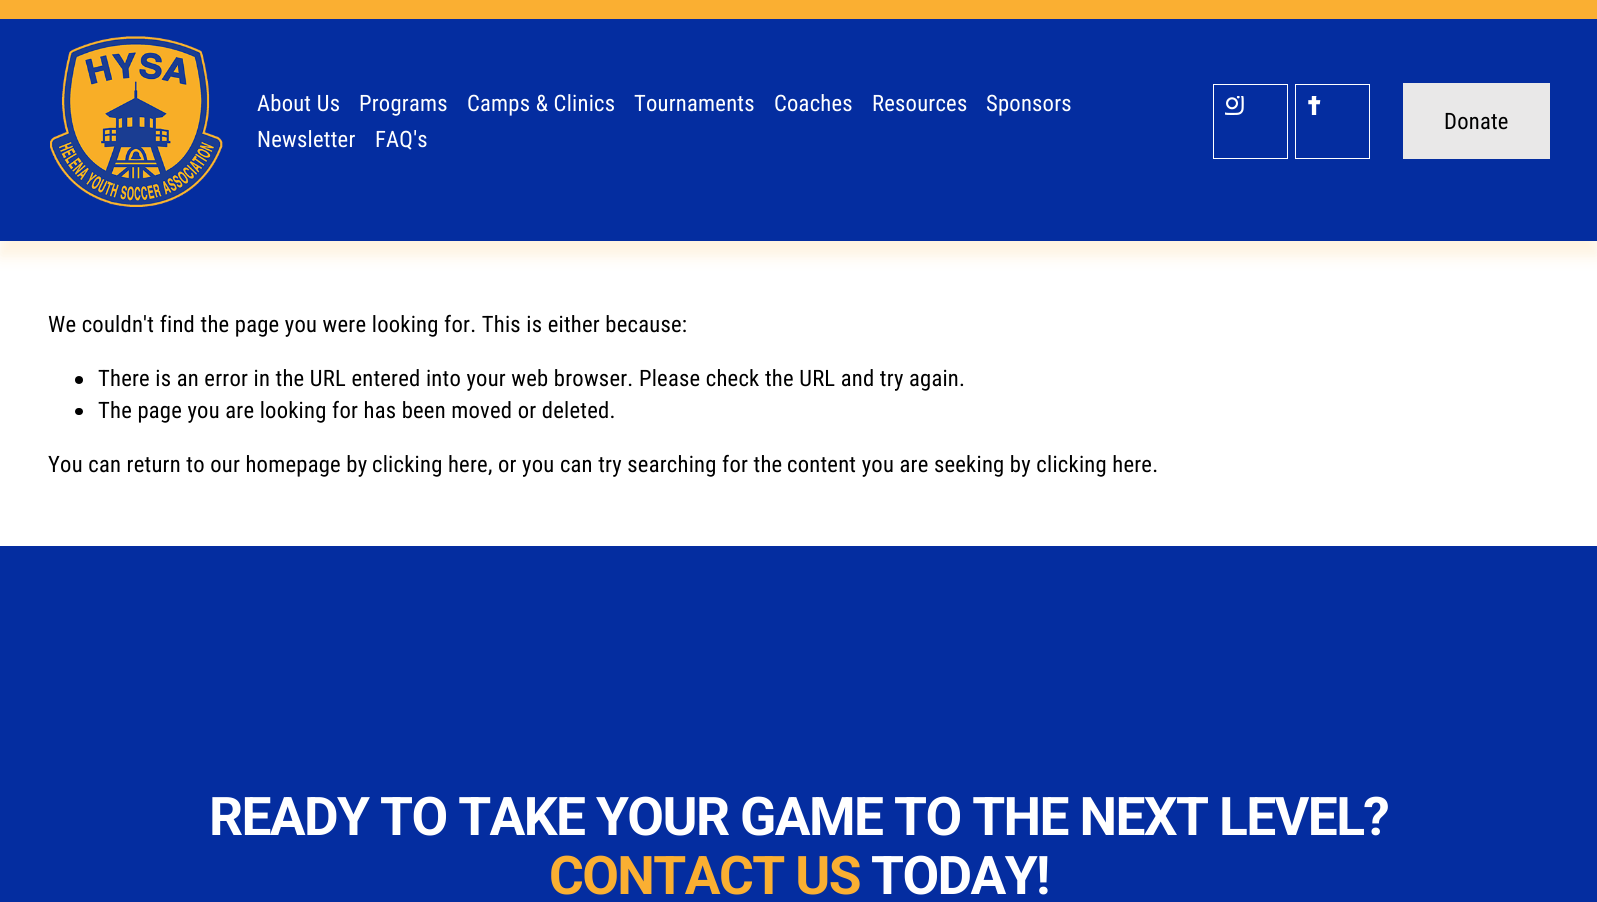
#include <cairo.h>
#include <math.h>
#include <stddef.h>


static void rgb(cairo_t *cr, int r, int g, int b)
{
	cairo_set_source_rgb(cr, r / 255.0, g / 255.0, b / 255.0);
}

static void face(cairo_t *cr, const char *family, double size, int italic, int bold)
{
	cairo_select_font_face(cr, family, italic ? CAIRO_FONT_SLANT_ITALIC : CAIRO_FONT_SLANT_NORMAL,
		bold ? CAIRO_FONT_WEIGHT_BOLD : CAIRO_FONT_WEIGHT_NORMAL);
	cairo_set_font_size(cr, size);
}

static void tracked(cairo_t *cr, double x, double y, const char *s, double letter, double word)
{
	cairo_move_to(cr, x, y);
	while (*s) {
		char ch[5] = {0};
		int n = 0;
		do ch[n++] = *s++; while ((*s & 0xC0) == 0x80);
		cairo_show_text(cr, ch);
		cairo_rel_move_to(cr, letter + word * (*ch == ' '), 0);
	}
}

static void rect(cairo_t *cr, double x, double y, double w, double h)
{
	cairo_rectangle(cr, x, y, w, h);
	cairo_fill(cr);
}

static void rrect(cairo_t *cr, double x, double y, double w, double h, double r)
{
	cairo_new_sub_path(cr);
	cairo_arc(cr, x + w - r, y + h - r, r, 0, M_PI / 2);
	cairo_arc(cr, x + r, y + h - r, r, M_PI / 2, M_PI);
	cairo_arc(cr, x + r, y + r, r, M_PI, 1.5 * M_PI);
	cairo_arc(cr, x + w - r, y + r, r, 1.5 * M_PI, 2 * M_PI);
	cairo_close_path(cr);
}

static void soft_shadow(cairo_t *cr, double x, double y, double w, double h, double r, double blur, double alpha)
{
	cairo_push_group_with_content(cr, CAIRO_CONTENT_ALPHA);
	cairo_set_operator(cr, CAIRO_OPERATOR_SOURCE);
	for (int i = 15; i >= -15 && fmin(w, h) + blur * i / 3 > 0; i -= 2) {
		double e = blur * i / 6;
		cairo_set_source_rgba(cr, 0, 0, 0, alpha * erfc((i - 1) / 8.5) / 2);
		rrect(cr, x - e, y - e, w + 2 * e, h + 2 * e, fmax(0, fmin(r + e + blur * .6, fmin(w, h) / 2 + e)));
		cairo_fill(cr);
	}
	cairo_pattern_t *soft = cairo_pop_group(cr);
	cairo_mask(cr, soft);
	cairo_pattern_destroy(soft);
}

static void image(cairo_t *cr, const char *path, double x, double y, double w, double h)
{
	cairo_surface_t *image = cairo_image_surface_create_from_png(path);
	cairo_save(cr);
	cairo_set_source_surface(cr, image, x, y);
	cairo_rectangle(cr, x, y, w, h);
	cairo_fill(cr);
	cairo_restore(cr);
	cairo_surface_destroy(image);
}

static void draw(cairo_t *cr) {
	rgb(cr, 255, 255, 255);
	cairo_paint(cr);
	rgb(cr, 4, 45, 160);
	rect(cr, 0, 19, 1597, 222);
	cairo_save(cr);
	cairo_rectangle(cr, 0, 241, 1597, 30);
	cairo_clip(cr);
	rgb(cr, 254, 243, 224);
	soft_shadow(cr, 0, 15, 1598, 241, 0, 7.5, 1);
	cairo_restore(cr);
	rgb(cr, 250, 175, 50);
	rect(cr, 0, 0, 1597, 19);
	image(cr, "image0.png", 50, 36, 173, 171);
	face(cr, "Roboto Condensed", 22.6, 0, 0);
	rgb(cr, 255, 255, 255);
	tracked(cr, 257, 111, "About Us", 0.23, 0);
	tracked(cr, 359, 111, "Programs", 0.23, 0);
	tracked(cr, 467, 111, "Camps & Clinics", 0.23, 0);
	tracked(cr, 634, 111, "Tournaments", 0.23, 0);
	tracked(cr, 774, 111, "Coaches", 0.23, 0);
	tracked(cr, 872, 111, "Resources", 0.23, 0);
	tracked(cr, 986, 111, "Sponsors", 0.23, 0);
	tracked(cr, 257, 147, "Newsletter", 0.23, 0);
	tracked(cr, 375, 147, "FAQ's", 0.23, 0);
	cairo_rectangle(cr, 1213.5, 84.5, 74, 74);
	cairo_set_line_width(cr, 1);
	cairo_stroke(cr);
	image(cr, "image1.png", 1225, 96, 19, 19);
	cairo_rectangle(cr, 1295.5, 84.5, 74, 74);
	cairo_stroke(cr);
	image(cr, "image2.png", 1308, 96, 13, 19);
	rgb(cr, 233, 232, 232);
	rect(cr, 1403, 83, 147, 76);
	rgb(cr, 0, 0, 0);
	tracked(cr, 1444, 129, "Donate", 0.23, 0);
	tracked(cr, 48, 332, "We couldn't find the page you were looking for. This is either because:", 0.23, 0);
	cairo_new_path(cr);
	cairo_arc(cr, 79, 380, 4, 0, 2 * M_PI);
	cairo_fill(cr);
	tracked(cr, 98, 386, "There is an error in the URL entered into your web browser. Please check the URL and try again.", 0.23, 0);
	rrect(cr, 75, 408, 8, 7, 3.5);
	cairo_fill(cr);
	tracked(cr, 98, 418, "The page you are looking for has been moved or deleted.", 0.23, 0);
	tracked(cr, 48, 472, "You can return to our homepage by", 0.23, 0);
	tracked(cr, 372, 472, "clicking here, or you can try searching for the", 0.23, 0);
	tracked(cr, 787, 472, "content you are seeking by clicking here.", 0.23, 0);
	rgb(cr, 4, 45, 160);
	rect(cr, 0, 546, 1597, 356);
	face(cr, "Roboto", 53.25, 0, 1);
	rgb(cr, 255, 255, 255);
	tracked(cr, 209, 835, "READY TO TAKE YOUR GAME TO THE NEXT LEVEL?", -1.6, 0);
	rgb(cr, 250, 175, 50);
	tracked(cr, 549, 894, "CONTACT US", -1.6, 0);
	rgb(cr, 255, 255, 255);
	tracked(cr, 871, 894, "TODAY!", -1.6, 0);
}

int main(void) {
	cairo_surface_t *surface = cairo_image_surface_create(CAIRO_FORMAT_RGB24, 1597, 902);
	cairo_t *cr = cairo_create(surface);
	cairo_font_options_t *options = cairo_font_options_create();
	cairo_font_options_set_hint_metrics(options, CAIRO_HINT_METRICS_OFF);
	cairo_font_options_set_hint_style(options, CAIRO_HINT_STYLE_NONE);
	cairo_set_font_options(cr, options);
	cairo_set_miter_limit(cr, 4);
	draw(cr);
	cairo_surface_write_to_png(surface, "render.png");
	cairo_font_options_destroy(options);
	cairo_destroy(cr);
	cairo_surface_destroy(surface);
	return 0;
}
